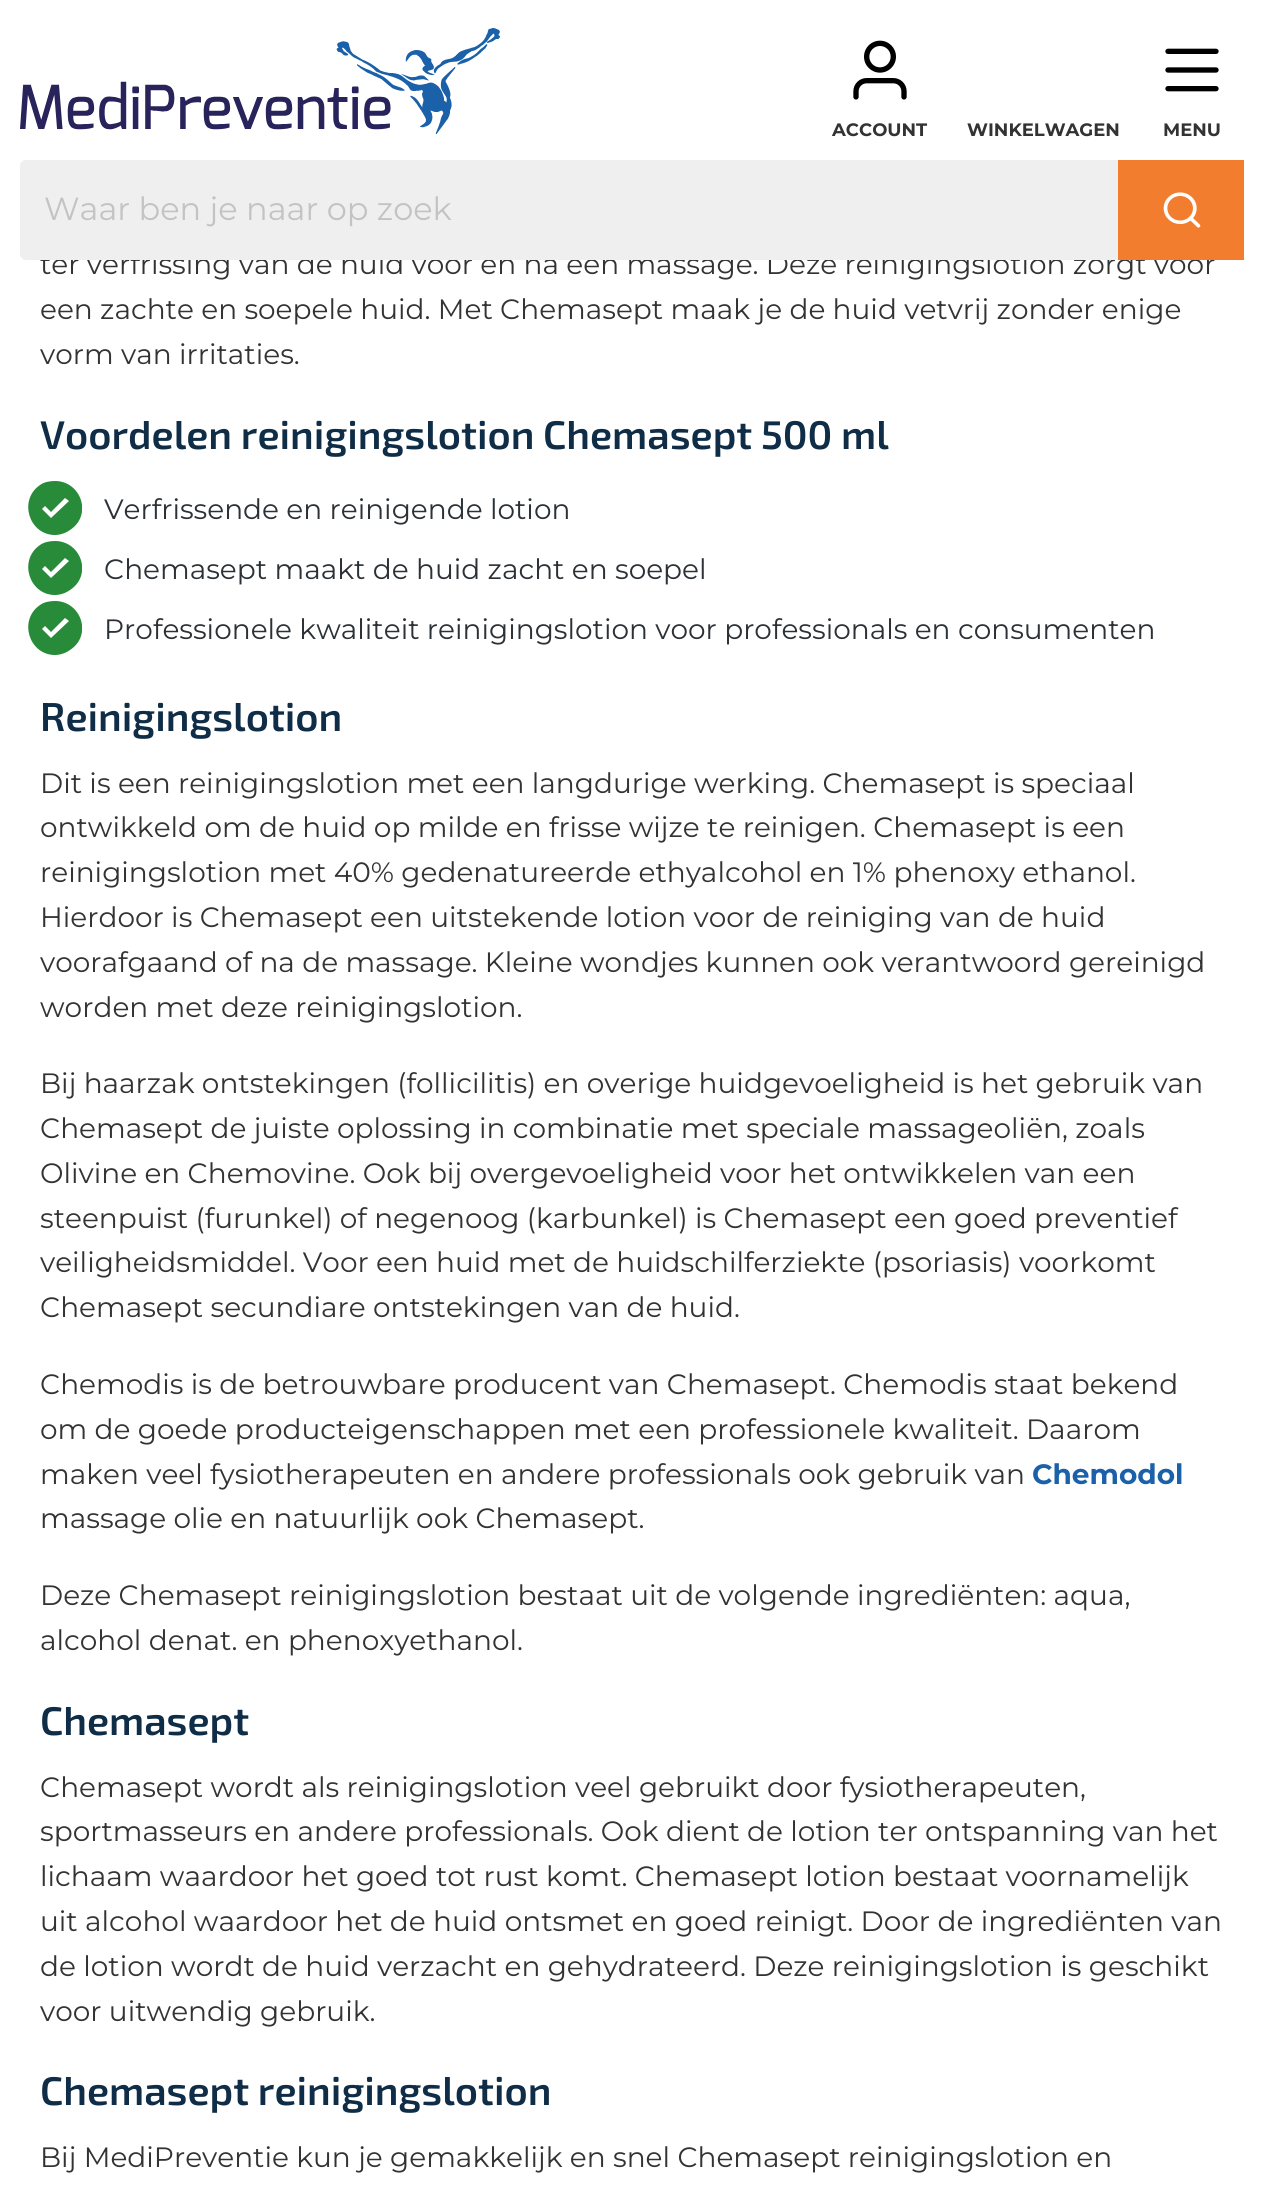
#include <cairo.h>
#include <math.h>
#include <stddef.h>


static void rgb(cairo_t *cr, int r, int g, int b)
{
	cairo_set_source_rgb(cr, r / 255.0, g / 255.0, b / 255.0);
}

static void face(cairo_t *cr, const char *family, double size, int italic, int bold)
{
	cairo_select_font_face(cr, family, italic ? CAIRO_FONT_SLANT_ITALIC : CAIRO_FONT_SLANT_NORMAL,
		bold ? CAIRO_FONT_WEIGHT_BOLD : CAIRO_FONT_WEIGHT_NORMAL);
	cairo_set_font_size(cr, size);
}

static void label(cairo_t *cr, double x, double y, const char *s)
{
	cairo_move_to(cr, x, y);
	cairo_show_text(cr, s);
}

static void rect(cairo_t *cr, double x, double y, double w, double h)
{
	cairo_rectangle(cr, x, y, w, h);
	cairo_fill(cr);
}

static void image(cairo_t *cr, const char *path, double x, double y, double w, double h)
{
	cairo_surface_t *image = cairo_image_surface_create_from_png(path);
	cairo_save(cr);
	cairo_set_source_surface(cr, image, x, y);
	cairo_rectangle(cr, x, y, w, h);
	cairo_fill(cr);
	cairo_restore(cr);
	cairo_surface_destroy(image);
}

static void draw(cairo_t *cr) {
	rgb(cr, 255, 255, 255);
	cairo_paint(cr);
	face(cr, "Montserrat", 28, 0, 0);
	rgb(cr, 51, 51, 51);
	label(cr, 40, 274, "ter verfrissing van de huid voor en na een massage. Deze reinigingslotion zorgt voor");
	rgb(cr, 255, 255, 255);
	rect(cr, 40, 253, 1175, 7);
	image(cr, "image0.png", 20, 28, 480, 106);
	image(cr, "image1.png", 853, 40, 54, 60);
	face(cr, "Montserrat", 18, 0, 1);
	rgb(cr, 51, 51, 51);
	label(cr, 832, 136, "ACCOUNT");
	label(cr, 967, 136, "WINKELWAGEN");
	image(cr, "image2.png", 1165, 48, 54, 44);
	label(cr, 1163, 136, "MENU");
	rgb(cr, 239, 239, 239);
	cairo_new_path(cr);
	cairo_move_to(cr, 26, 160);
	cairo_line_to(cr, 1120, 160);
	cairo_line_to(cr, 1120, 260);
	cairo_line_to(cr, 26, 260);
	cairo_curve_to(cr, 22.5, 260, 20, 257.5, 20, 254);
	cairo_line_to(cr, 20, 166);
	cairo_curve_to(cr, 20, 162.5, 22.5, 160, 26, 160);
	cairo_close_path(cr);
	cairo_fill(cr);
	face(cr, "Montserrat", 32, 0, 0);
	rgb(cr, 195, 195, 195);
	label(cr, 44, 220, "Waar ben je naar op zoek");
	rgb(cr, 242, 125, 47);
	rect(cr, 1118, 160, 126, 100);
	image(cr, "image3.png", 1163, 192, 38, 36);
	face(cr, "Montserrat", 28, 0, 0);
	rgb(cr, 51, 51, 51);
	label(cr, 40, 319, "een zachte en soepele huid. Met Chemasept maak je de huid vetvrij zonder enige");
	label(cr, 40, 364, "vorm van irritaties.");
	face(cr, "Exo 2 SemiBold", 40, 0, 0);
	rgb(cr, 16, 45, 71);
	label(cr, 40, 449, "Voordelen reinigingslotion Chemasept 500 ml");
	cairo_save(cr);
	cairo_rectangle(cr, 28, 480, 54, 56);
	cairo_clip(cr);
	rgb(cr, 40, 139, 58);
	cairo_set_fill_rule(cr, CAIRO_FILL_RULE_EVEN_ODD);
	cairo_new_path(cr);
	cairo_move_to(cr, 55, 481);
	cairo_curve_to(cr, 50, 481, 44, 482, 40, 485);
	cairo_curve_to(cr, 18, 500, 29, 535, 55, 535);
	cairo_curve_to(cr, 60, 535, 66, 533, 70, 530);
	cairo_curve_to(cr, 93, 515, 81, 481, 55, 481);
	cairo_close_path(cr);
	cairo_move_to(cr, 51, 518);
	cairo_line_to(cr, 42, 509);
	cairo_line_to(cr, 45, 506);
	cairo_line_to(cr, 51, 512);
	cairo_line_to(cr, 65, 498);
	cairo_line_to(cr, 69, 501);
	cairo_close_path(cr);
	cairo_fill(cr);
	cairo_restore(cr);
	face(cr, "Montserrat", 28, 0, 0);
	rgb(cr, 43, 49, 54);
	label(cr, 104, 519, "Verfrissende en reinigende lotion");
	cairo_save(cr);
	cairo_rectangle(cr, 28, 540, 54, 56);
	cairo_clip(cr);
	rgb(cr, 40, 139, 58);
	cairo_set_fill_rule(cr, CAIRO_FILL_RULE_EVEN_ODD);
	cairo_new_path(cr);
	cairo_move_to(cr, 55, 541);
	cairo_curve_to(cr, 50, 541, 44, 542, 40, 545);
	cairo_curve_to(cr, 18, 560, 29, 595, 55, 595);
	cairo_curve_to(cr, 60, 595, 66, 593, 70, 590);
	cairo_curve_to(cr, 93, 575, 81, 541, 55, 541);
	cairo_close_path(cr);
	cairo_move_to(cr, 51, 578);
	cairo_line_to(cr, 42, 569);
	cairo_line_to(cr, 45, 566);
	cairo_line_to(cr, 51, 572);
	cairo_line_to(cr, 65, 558);
	cairo_line_to(cr, 69, 561);
	cairo_close_path(cr);
	cairo_fill(cr);
	cairo_restore(cr);
	label(cr, 104, 579, "Chemasept maakt de huid zacht en soepel");
	cairo_save(cr);
	cairo_rectangle(cr, 28, 600, 54, 56);
	cairo_clip(cr);
	rgb(cr, 40, 139, 58);
	cairo_set_fill_rule(cr, CAIRO_FILL_RULE_EVEN_ODD);
	cairo_new_path(cr);
	cairo_move_to(cr, 55, 601);
	cairo_curve_to(cr, 50, 601, 44, 602, 40, 605);
	cairo_curve_to(cr, 18, 620, 29, 655, 55, 655);
	cairo_curve_to(cr, 60, 655, 66, 653, 70, 650);
	cairo_curve_to(cr, 93, 635, 81, 601, 55, 601);
	cairo_close_path(cr);
	cairo_move_to(cr, 51, 638);
	cairo_line_to(cr, 42, 629);
	cairo_line_to(cr, 45, 626);
	cairo_line_to(cr, 51, 632);
	cairo_line_to(cr, 65, 618);
	cairo_line_to(cr, 69, 621);
	cairo_close_path(cr);
	cairo_fill(cr);
	cairo_restore(cr);
	label(cr, 104, 639, "Professionele kwaliteit reinigingslotion voor professionals en consumenten");
	face(cr, "Exo 2 SemiBold", 40, 0, 0);
	rgb(cr, 16, 45, 71);
	label(cr, 40, 731, "Reinigingslotion");
	face(cr, "Montserrat", 28, 0, 0);
	rgb(cr, 51, 51, 51);
	label(cr, 40, 793, "Dit is een reinigingslotion met een langdurige werking. Chemasept is speciaal");
	label(cr, 40, 837, "ontwikkeld om de huid op milde en frisse wijze te reinigen. Chemasept is een");
	label(cr, 40, 882, "reinigingslotion met 40% gedenatureerde ethyalcohol en 1% phenoxy ethanol.");
	label(cr, 40, 927, "Hierdoor is Chemasept een uitstekende lotion voor de reiniging van de huid");
	label(cr, 40, 972, "voorafgaand of na de massage. Kleine wondjes kunnen ook verantwoord gereinigd");
	label(cr, 40, 1017, "worden met deze reinigingslotion.");
	label(cr, 40, 1093, "Bij haarzak ontstekingen (follicilitis) en overige huidgevoeligheid is het gebruik van");
	label(cr, 40, 1138, "Chemasept de juiste oplossing in combinatie met speciale massageoliën, zoals");
	label(cr, 40, 1183, "Olivine en Chemovine. Ook bij overgevoeligheid voor het ontwikkelen van een");
	label(cr, 40, 1228, "steenpuist (furunkel) of negenoog (karbunkel) is Chemasept een goed preventief");
	label(cr, 40, 1272, "veiligheidsmiddel. Voor een huid met de huidschilferziekte (psoriasis) voorkomt");
	label(cr, 40, 1317, "Chemasept secundiare ontstekingen van de huid.");
	label(cr, 40, 1394, "Chemodis is de betrouwbare producent van Chemasept. Chemodis staat bekend");
	label(cr, 40, 1439, "om de goede producteigenschappen met een professionele kwaliteit. Daarom");
	label(cr, 40, 1484, "maken veel fysiotherapeuten en andere professionals ook gebruik van");
	face(cr, "Montserrat", 28, 0, 1);
	rgb(cr, 26, 97, 170);
	label(cr, 1032, 1484, "Chemodol");
	face(cr, "Montserrat", 28, 0, 0);
	rgb(cr, 51, 51, 51);
	label(cr, 40, 1528, "massage olie en natuurlijk ook Chemasept.");
	label(cr, 40, 1605, "Deze Chemasept reinigingslotion bestaat uit de volgende ingrediënten: aqua,");
	label(cr, 40, 1650, "alcohol denat. en phenoxyethanol.");
	face(cr, "Exo 2 SemiBold", 40, 0, 0);
	rgb(cr, 16, 45, 71);
	label(cr, 40, 1735, "Chemasept");
	face(cr, "Montserrat", 28, 0, 0);
	rgb(cr, 51, 51, 51);
	label(cr, 40, 1797, "Chemasept wordt als reinigingslotion veel gebruikt door fysiotherapeuten,");
	label(cr, 40, 1841, "sportmasseurs en andere professionals. Ook dient de lotion ter ontspanning van het");
	label(cr, 40, 1886, "lichaam waardoor het goed tot rust komt. Chemasept lotion bestaat voornamelijk");
	label(cr, 40, 1931, "uit alcohol waardoor het de huid ontsmet en goed reinigt. Door de ingrediënten van");
	label(cr, 40, 1976, "de lotion wordt de huid verzacht en gehydrateerd. Deze reinigingslotion is geschikt");
	label(cr, 40, 2021, "voor uitwendig gebruik.");
	face(cr, "Exo 2 SemiBold", 40, 0, 0);
	rgb(cr, 16, 45, 71);
	label(cr, 40, 2105, "Chemasept reinigingslotion");
	face(cr, "Montserrat", 28, 0, 0);
	rgb(cr, 51, 51, 51);
	label(cr, 40, 2167, "Bij MediPreventie kun je gemakkelijk en snel Chemasept reinigingslotion en");
}

int main(void) {
	cairo_surface_t *surface = cairo_image_surface_create(CAIRO_FORMAT_RGB24, 1263, 2201);
	cairo_t *cr = cairo_create(surface);
	cairo_font_options_t *options = cairo_font_options_create();
	cairo_font_options_set_hint_metrics(options, CAIRO_HINT_METRICS_OFF);
	cairo_font_options_set_hint_style(options, CAIRO_HINT_STYLE_NONE);
	cairo_set_font_options(cr, options);
	cairo_set_miter_limit(cr, 4);
	draw(cr);
	cairo_surface_write_to_png(surface, "render.png");
	cairo_font_options_destroy(options);
	cairo_destroy(cr);
	cairo_surface_destroy(surface);
	return 0;
}
